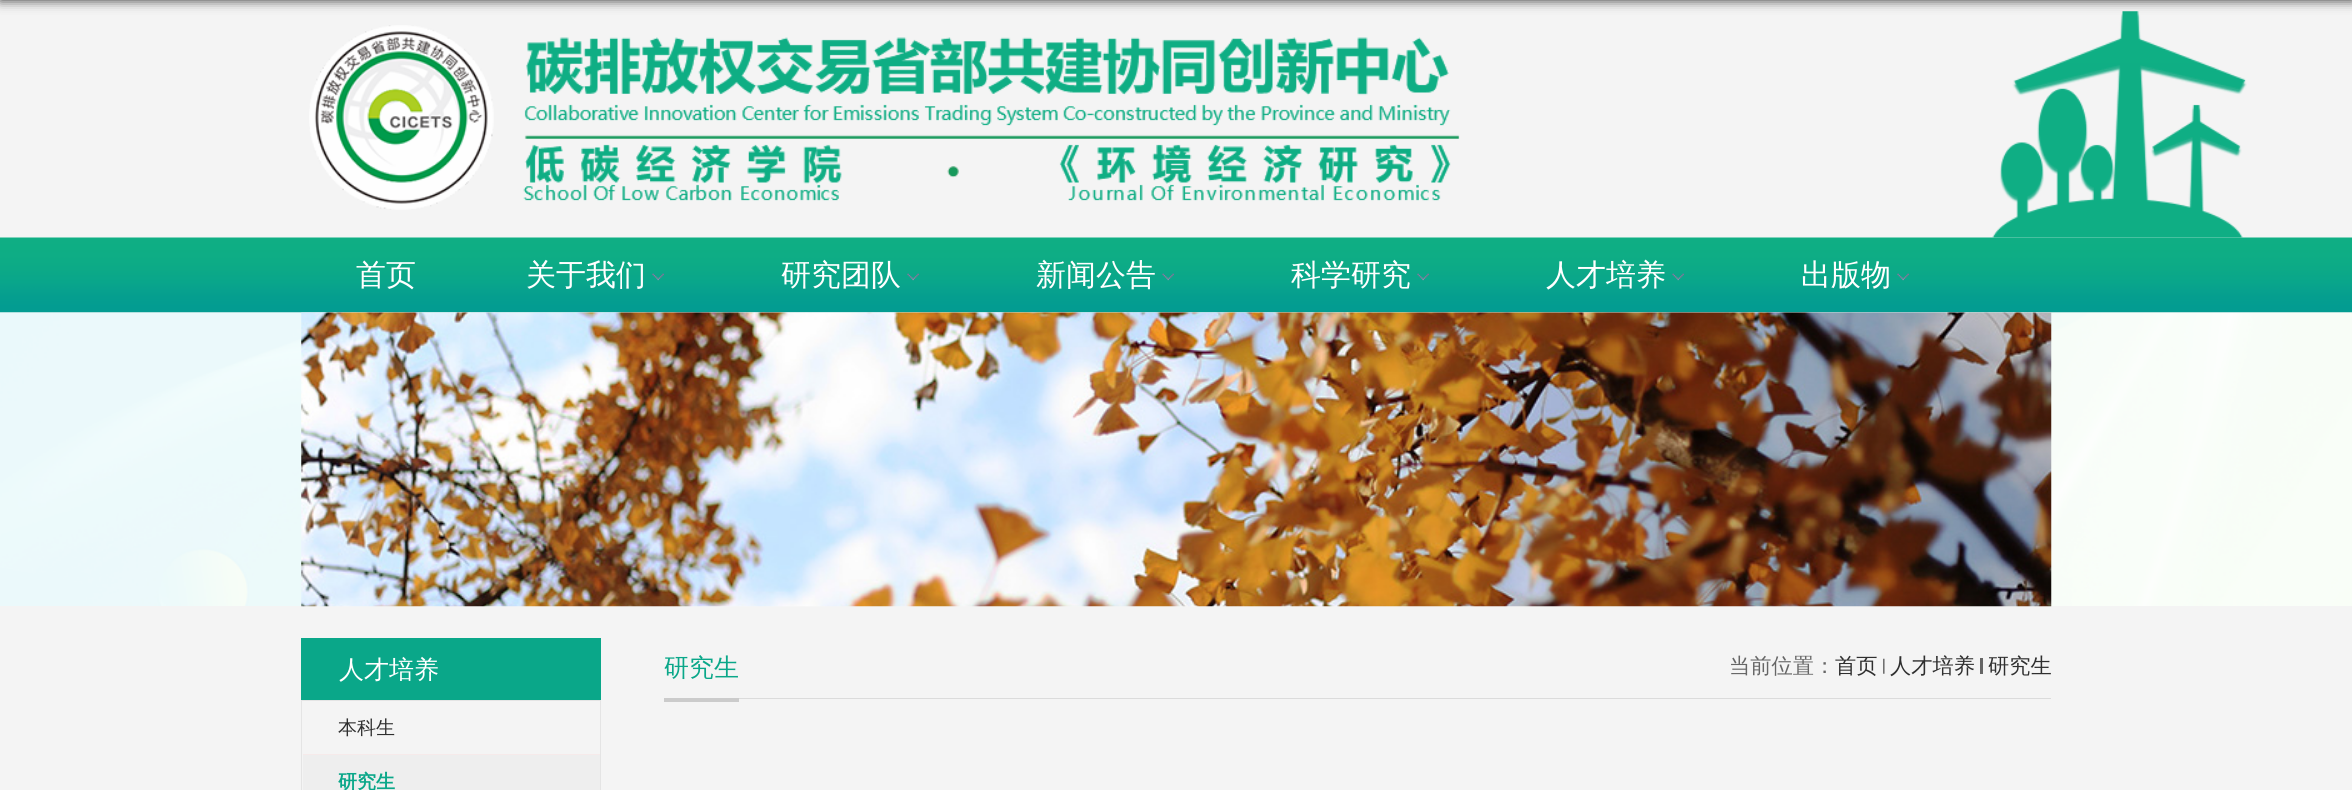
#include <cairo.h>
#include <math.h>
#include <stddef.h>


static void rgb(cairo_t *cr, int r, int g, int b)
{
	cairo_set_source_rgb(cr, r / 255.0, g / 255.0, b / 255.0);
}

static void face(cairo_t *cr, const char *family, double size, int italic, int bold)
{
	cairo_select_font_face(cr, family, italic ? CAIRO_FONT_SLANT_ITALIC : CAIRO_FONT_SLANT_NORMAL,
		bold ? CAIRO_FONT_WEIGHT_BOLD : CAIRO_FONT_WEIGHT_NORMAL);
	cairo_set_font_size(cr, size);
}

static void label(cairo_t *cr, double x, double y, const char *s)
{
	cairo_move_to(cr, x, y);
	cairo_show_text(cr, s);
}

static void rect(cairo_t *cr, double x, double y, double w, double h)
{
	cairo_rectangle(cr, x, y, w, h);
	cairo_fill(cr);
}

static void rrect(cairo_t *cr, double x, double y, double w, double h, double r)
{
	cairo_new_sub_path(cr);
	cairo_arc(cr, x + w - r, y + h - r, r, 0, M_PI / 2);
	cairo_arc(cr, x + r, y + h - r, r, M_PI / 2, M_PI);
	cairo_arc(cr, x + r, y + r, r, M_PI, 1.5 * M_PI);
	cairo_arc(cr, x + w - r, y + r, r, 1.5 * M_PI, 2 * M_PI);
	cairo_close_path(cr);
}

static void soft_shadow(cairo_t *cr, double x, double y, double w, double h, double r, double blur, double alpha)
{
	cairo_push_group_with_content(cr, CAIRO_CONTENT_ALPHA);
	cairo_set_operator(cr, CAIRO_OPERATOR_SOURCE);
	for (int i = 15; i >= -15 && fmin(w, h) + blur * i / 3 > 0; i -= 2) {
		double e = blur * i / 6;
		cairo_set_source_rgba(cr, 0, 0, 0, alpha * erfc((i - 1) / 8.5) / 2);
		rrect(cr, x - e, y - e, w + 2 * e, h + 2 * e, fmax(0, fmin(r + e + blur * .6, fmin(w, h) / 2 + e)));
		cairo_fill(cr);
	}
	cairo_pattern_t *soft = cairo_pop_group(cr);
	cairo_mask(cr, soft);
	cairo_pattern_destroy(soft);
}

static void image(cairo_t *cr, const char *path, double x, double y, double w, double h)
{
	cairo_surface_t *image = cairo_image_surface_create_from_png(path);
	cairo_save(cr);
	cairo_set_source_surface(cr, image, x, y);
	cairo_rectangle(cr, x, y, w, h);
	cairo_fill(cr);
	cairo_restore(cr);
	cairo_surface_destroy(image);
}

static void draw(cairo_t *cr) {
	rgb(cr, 244, 244, 244);
	cairo_paint(cr);
	image(cr, "image2.png", 0, 237, 2352, 76);
	image(cr, "image0.png", 1992, 11, 255, 227);
	rgb(cr, 0, 0, 0);
	soft_shadow(cr, 0, -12, 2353, 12, 0, 6, 0.8);
	image(cr, "image1.png", 309, 25, 1151, 185);
	face(cr, "WenQuanYi Zen Hei Medium", 30, 0, 0);
	rgb(cr, 255, 255, 255);
	label(cr, 356, 285, "首页");
	label(cr, 526, 285, "关于我们");
	image(cr, "image3.png", 652, 273, 12, 8);
	label(cr, 781, 285, "研究团队");
	image(cr, "image3.png", 907, 273, 12, 8);
	label(cr, 1036, 285, "新闻公告");
	image(cr, "image4.png", 1162, 273, 12, 8);
	label(cr, 1291, 285, "科学研究");
	image(cr, "image3.png", 1417, 273, 12, 8);
	label(cr, 1546, 285, "人才培养");
	image(cr, "image4.png", 1672, 273, 12, 8);
	label(cr, 1801, 285, "出版物");
	image(cr, "image3.png", 1897, 273, 12, 8);
	image(cr, "image5.png", 0, 312, 2352, 294);
	image(cr, "image6.png", 301, 312, 1751, 295);
	rgb(cr, 10, 167, 137);
	rect(cr, 301, 638, 300, 62);
	face(cr, "WenQuanYi Zen Hei Medium", 25, 0, 0);
	rgb(cr, 255, 255, 255);
	label(cr, 339, 678, "人才培养");
	cairo_rectangle(cr, 301.5, 700.5, 299, 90);
	rgb(cr, 228, 228, 228);
	cairo_set_line_width(cr, 1);
	cairo_stroke(cr);
	rgb(cr, 246, 234, 234);
	rect(cr, 303, 754, 297, 1);
	face(cr, "WenQuanYi Zen Hei Medium", 19, 0, 0);
	rgb(cr, 47, 47, 47);
	label(cr, 338, 734, "本科生");
	rgb(cr, 238, 238, 238);
	rect(cr, 303, 755, 297, 35);
	face(cr, "WenQuanYi Zen Hei", 19, 0, 1);
	rgb(cr, 10, 167, 137);
	label(cr, 338, 788, "研究生");
	rgb(cr, 219, 219, 219);
	rect(cr, 739, 698, 1312, 1);
	rgb(cr, 203, 203, 203);
	rect(cr, 664, 698, 75, 4);
	face(cr, "WenQuanYi Zen Hei Medium", 25, 0, 0);
	rgb(cr, 10, 167, 137);
	label(cr, 664, 676, "研究生");
	face(cr, "WenQuanYi Zen Hei Medium", 21.25, 0, 0);
	rgb(cr, 102, 102, 102);
	label(cr, 1729, 673, "当前位置：");
	rgb(cr, 47, 47, 47);
	label(cr, 1835, 673, "首页");
	image(cr, "image7.png", 1883, 658, 2, 16);
	label(cr, 1890, 673, "人才培养");
	rgb(cr, 101, 101, 101);
	rect(cr, 1980, 658, 3, 16);
	rgb(cr, 47, 47, 47);
	label(cr, 1988, 673, "研究生");
}

int main(void) {
	cairo_surface_t *surface = cairo_image_surface_create(CAIRO_FORMAT_RGB24, 2352, 790);
	cairo_t *cr = cairo_create(surface);
	cairo_font_options_t *options = cairo_font_options_create();
	cairo_font_options_set_hint_metrics(options, CAIRO_HINT_METRICS_OFF);
	cairo_font_options_set_hint_style(options, CAIRO_HINT_STYLE_NONE);
	cairo_set_font_options(cr, options);
	cairo_set_miter_limit(cr, 4);
	draw(cr);
	cairo_surface_write_to_png(surface, "render.png");
	cairo_font_options_destroy(options);
	cairo_destroy(cr);
	cairo_surface_destroy(surface);
	return 0;
}
